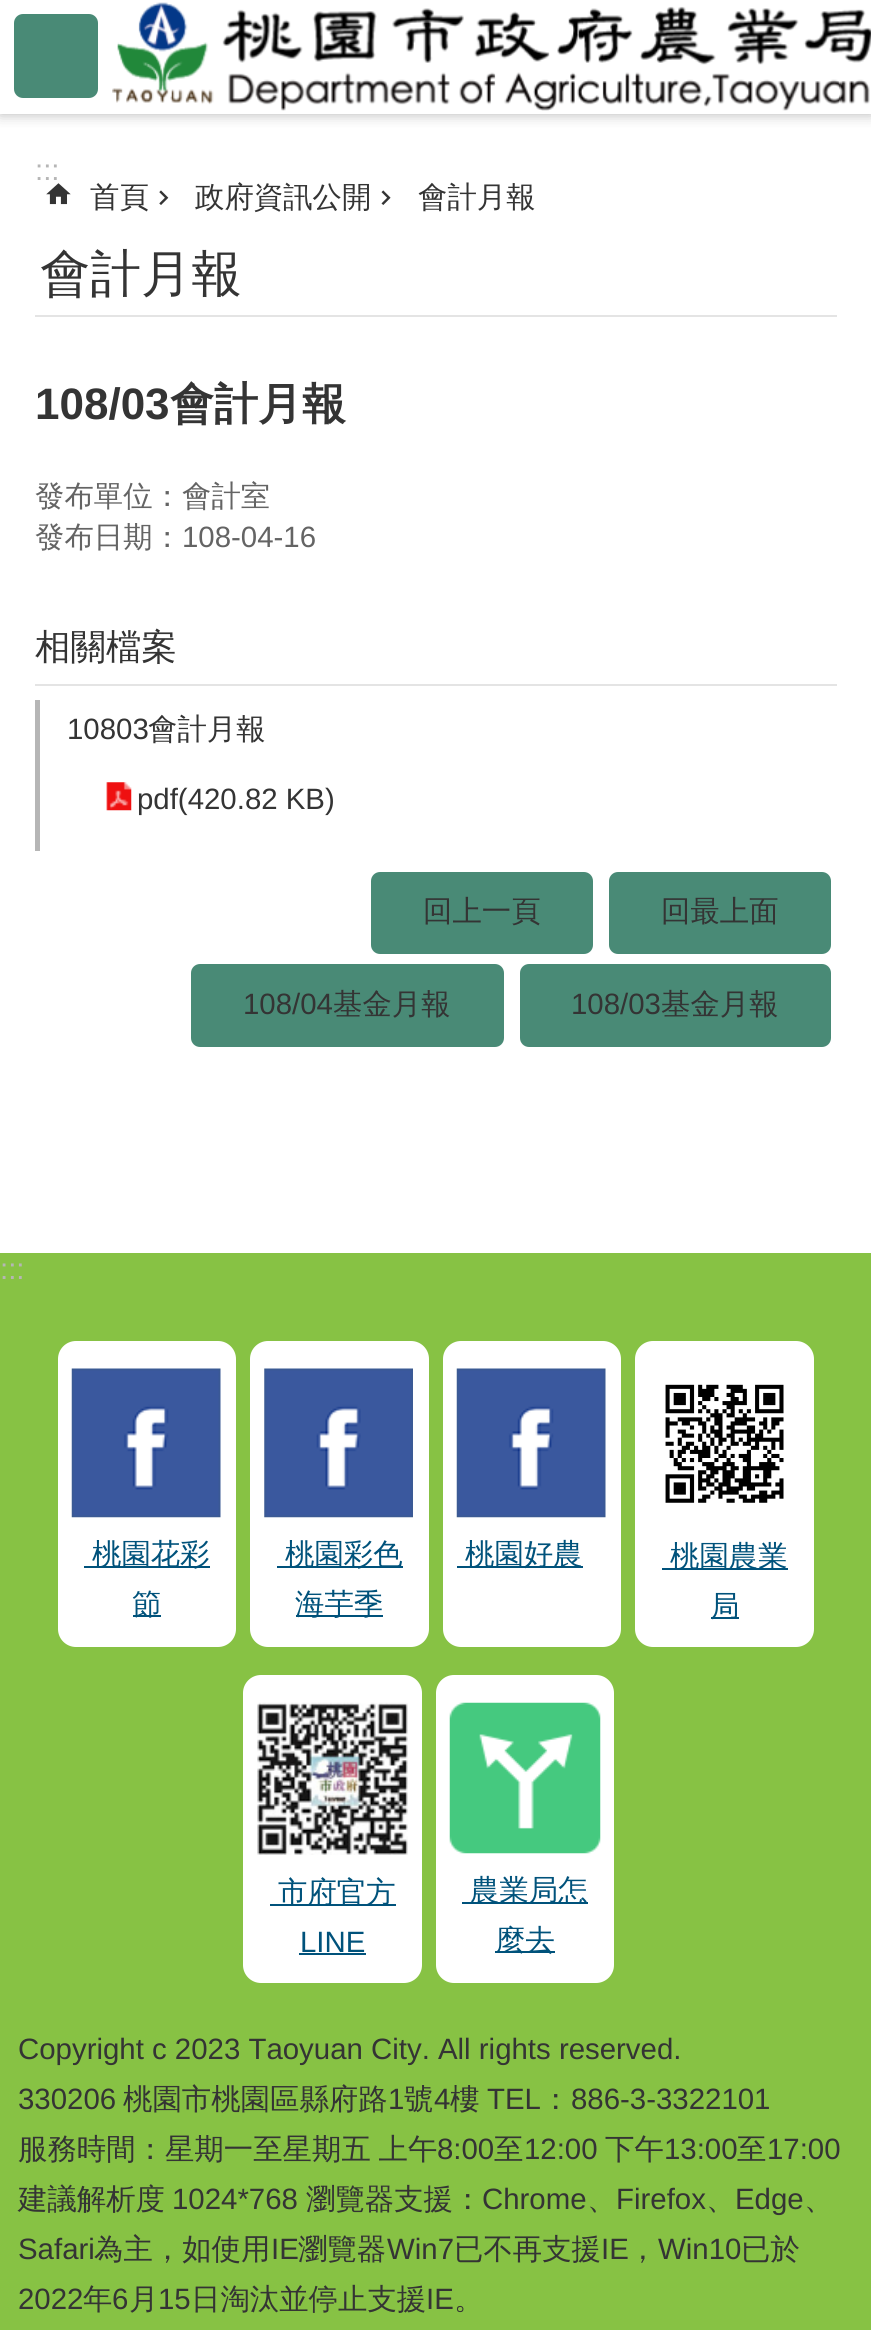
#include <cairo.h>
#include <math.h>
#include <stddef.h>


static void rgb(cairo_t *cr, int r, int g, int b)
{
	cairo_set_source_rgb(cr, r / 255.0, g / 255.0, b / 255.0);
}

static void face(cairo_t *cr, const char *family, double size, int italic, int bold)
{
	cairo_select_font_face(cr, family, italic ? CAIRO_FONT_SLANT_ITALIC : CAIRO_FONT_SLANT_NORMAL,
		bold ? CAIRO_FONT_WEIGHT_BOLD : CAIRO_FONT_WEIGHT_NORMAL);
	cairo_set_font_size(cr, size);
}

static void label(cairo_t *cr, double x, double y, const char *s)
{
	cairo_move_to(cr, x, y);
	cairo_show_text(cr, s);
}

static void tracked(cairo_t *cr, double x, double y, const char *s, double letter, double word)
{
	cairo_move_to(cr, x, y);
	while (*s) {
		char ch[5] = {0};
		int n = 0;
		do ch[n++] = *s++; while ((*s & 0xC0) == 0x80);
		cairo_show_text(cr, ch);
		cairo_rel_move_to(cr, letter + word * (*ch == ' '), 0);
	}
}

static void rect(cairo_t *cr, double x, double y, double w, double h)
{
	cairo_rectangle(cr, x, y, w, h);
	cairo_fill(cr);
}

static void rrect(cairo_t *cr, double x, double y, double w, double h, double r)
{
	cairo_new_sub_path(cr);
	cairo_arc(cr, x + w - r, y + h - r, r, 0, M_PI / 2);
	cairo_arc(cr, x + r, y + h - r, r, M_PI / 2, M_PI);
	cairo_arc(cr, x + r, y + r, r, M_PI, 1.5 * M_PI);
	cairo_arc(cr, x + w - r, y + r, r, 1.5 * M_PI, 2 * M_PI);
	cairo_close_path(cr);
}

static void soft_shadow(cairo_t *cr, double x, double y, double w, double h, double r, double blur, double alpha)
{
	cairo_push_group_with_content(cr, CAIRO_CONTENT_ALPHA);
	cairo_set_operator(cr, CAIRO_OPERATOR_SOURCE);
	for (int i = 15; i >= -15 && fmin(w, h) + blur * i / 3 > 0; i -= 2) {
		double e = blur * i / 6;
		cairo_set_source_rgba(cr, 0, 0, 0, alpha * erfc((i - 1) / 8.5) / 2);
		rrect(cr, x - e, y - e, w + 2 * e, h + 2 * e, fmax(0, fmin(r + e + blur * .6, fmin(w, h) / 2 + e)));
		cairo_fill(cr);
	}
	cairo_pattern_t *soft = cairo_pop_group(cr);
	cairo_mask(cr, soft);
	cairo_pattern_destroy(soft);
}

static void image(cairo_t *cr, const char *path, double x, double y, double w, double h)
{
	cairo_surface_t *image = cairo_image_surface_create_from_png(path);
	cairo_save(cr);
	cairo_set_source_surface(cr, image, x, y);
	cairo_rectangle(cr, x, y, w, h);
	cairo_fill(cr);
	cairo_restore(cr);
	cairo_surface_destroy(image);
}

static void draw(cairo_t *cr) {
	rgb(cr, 255, 255, 255);
	cairo_paint(cr);
	cairo_save(cr);
	cairo_rectangle(cr, 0, 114, 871, 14);
	cairo_clip(cr);
	rgb(cr, 182, 182, 182);
	soft_shadow(cr, 0, 0, 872, 114, 0, 7, 1);
	cairo_restore(cr);
	rgb(cr, 73, 138, 118);
	rrect(cr, 14, 14, 84, 84, 9);
	cairo_fill(cr);
	rgb(cr, 255, 255, 255);
	rect(cr, 0, 113, 871, 1);
	image(cr, "image0.png", 112, 2, 759, 109);
	face(cr, "Liberation Sans", 29.4, 0, 0);
	rgb(cr, 182, 182, 182);
	label(cr, 35, 180, ":::");
	image(cr, "image1.png", 46, 183, 25, 22);
	face(cr, "WenQuanYi Zen Hei Medium", 29.4, 0, 0);
	rgb(cr, 52, 52, 52);
	label(cr, 90, 207, "首頁");
	image(cr, "image2.png", 159, 190, 10, 15);
	label(cr, 195, 207, "政府資訊公開");
	image(cr, "image3.png", 381, 190, 10, 15);
	label(cr, 418, 207, "會計月報");
	rgb(cr, 228, 228, 228);
	rect(cr, 35, 315, 802, 2);
	face(cr, "WenQuanYi Zen Hei Medium", 50.5, 0, 0);
	rgb(cr, 52, 52, 52);
	label(cr, 40, 291, "會計月報");
	face(cr, "Liberation Sans", 44, 0, 1);
	label(cr, 35, 419, "108/03");
	face(cr, "WenQuanYi Zen Hei", 44, 0, 1);
	label(cr, 170, 419, "會計月報");
	face(cr, "WenQuanYi Zen Hei Medium", 29.4, 0, 0);
	rgb(cr, 100, 100, 100);
	label(cr, 35, 506, "發布單位：會計室");
	label(cr, 35, 547, "發布日期：");
	face(cr, "Liberation Sans", 29.4, 0, 0);
	label(cr, 182, 547, "108-04-16");
	rgb(cr, 228, 228, 228);
	rect(cr, 35, 684, 802, 2);
	face(cr, "WenQuanYi Zen Hei Medium", 35.5, 0, 0);
	rgb(cr, 52, 52, 52);
	label(cr, 35, 659, "相關檔案");
	rgb(cr, 182, 182, 182);
	rect(cr, 35, 700, 5, 151);
	face(cr, "Liberation Sans", 29.4, 0, 0);
	rgb(cr, 52, 52, 52);
	label(cr, 67, 739, "10803");
	face(cr, "WenQuanYi Zen Hei Medium", 29.4, 0, 0);
	label(cr, 148, 739, "會計月報");
	image(cr, "image4.png", 106, 782, 26, 29);
	face(cr, "Liberation Sans", 29.4, 0, 0);
	label(cr, 137, 809, "pdf(420.82 KB)");
	rgb(cr, 73, 138, 118);
	rrect(cr, 371, 872, 222, 82, 9);
	cairo_fill(cr);
	face(cr, "WenQuanYi Zen Hei Medium", 29.4, 0, 0);
	rgb(cr, 52, 52, 52);
	label(cr, 423, 921, "回上一頁");
	rgb(cr, 73, 138, 118);
	rrect(cr, 609, 872, 222, 82, 9);
	cairo_fill(cr);
	rgb(cr, 52, 52, 52);
	label(cr, 661, 921, "回最上面");
	rgb(cr, 73, 138, 118);
	rrect(cr, 191, 964, 313, 83, 9);
	cairo_fill(cr);
	face(cr, "Liberation Sans", 29.4, 0, 0);
	rgb(cr, 52, 52, 52);
	label(cr, 243, 1014, "108/04");
	face(cr, "WenQuanYi Zen Hei Medium", 29.4, 0, 0);
	label(cr, 333, 1014, "基金月報");
	rgb(cr, 73, 138, 118);
	rrect(cr, 520, 964, 311, 83, 9);
	cairo_fill(cr);
	face(cr, "Liberation Sans", 29.4, 0, 0);
	rgb(cr, 52, 52, 52);
	label(cr, 571, 1014, "108/03");
	face(cr, "WenQuanYi Zen Hei Medium", 29.4, 0, 0);
	label(cr, 661, 1014, "基金月報");
	rgb(cr, 135, 194, 68);
	rect(cr, 0, 1253, 871, 1077);
	face(cr, "Liberation Sans", 29.4, 0, 0);
	rgb(cr, 182, 182, 182);
	label(cr, 0, 1279, ":::");
	rgb(cr, 255, 255, 255);
	rrect(cr, 58, 1341, 178, 306, 18);
	cairo_fill(cr);
	image(cr, "image5.png", 71, 1368, 150, 150);
	rgb(cr, 0, 82, 123);
	rect(cr, 84, 1566, 126, 2);
	face(cr, "WenQuanYi Zen Hei Medium", 29.4, 0, 0);
	label(cr, 92, 1564, "桃園花彩");
	rect(cr, 133, 1615, 28, 2);
	label(cr, 132, 1614, "節");
	rgb(cr, 255, 255, 255);
	rrect(cr, 250, 1341, 179, 306, 18);
	cairo_fill(cr);
	image(cr, "image6.png", 264, 1368, 149, 150);
	rgb(cr, 0, 82, 123);
	rect(cr, 277, 1566, 126, 2);
	label(cr, 285, 1564, "桃園彩色");
	rect(cr, 296, 1615, 87, 2);
	label(cr, 295, 1614, "海芋季");
	rgb(cr, 255, 255, 255);
	rrect(cr, 443, 1341, 178, 306, 18);
	cairo_fill(cr);
	image(cr, "image5.png", 456, 1368, 150, 150);
	rgb(cr, 0, 82, 123);
	rect(cr, 457, 1566, 126, 2);
	label(cr, 465, 1564, "桃園好農");
	rgb(cr, 255, 255, 255);
	rrect(cr, 635, 1341, 179, 306, 18);
	cairo_fill(cr);
	image(cr, "image7.png", 665, 1384, 119, 119);
	rgb(cr, 0, 82, 123);
	rect(cr, 662, 1568, 126, 2);
	label(cr, 670, 1566, "桃園農業");
	rect(cr, 711, 1617, 28, 2);
	label(cr, 710, 1616, "局");
	rgb(cr, 255, 255, 255);
	rrect(cr, 243, 1675, 179, 308, 18);
	cairo_fill(cr);
	image(cr, "image8.png", 257, 1702, 151, 153);
	rgb(cr, 0, 82, 123);
	rect(cr, 270, 1904, 126, 2);
	label(cr, 278, 1902, "市府官方");
	face(cr, "Liberation Sans", 29.4, 0, 0);
	label(cr, 300, 1952, "LINE");
	rect(cr, 299, 1953, 67, 2);
	rgb(cr, 255, 255, 255);
	rrect(cr, 436, 1675, 178, 308, 18);
	cairo_fill(cr);
	image(cr, "image9.png", 449, 1702, 152, 152);
	rgb(cr, 0, 82, 123);
	rect(cr, 462, 1902, 126, 2);
	face(cr, "WenQuanYi Zen Hei Medium", 29.4, 0, 0);
	label(cr, 470, 1900, "農業局怎");
	rect(cr, 495, 1951, 60, 2);
	label(cr, 496, 1950, "麼去");
	face(cr, "Liberation Sans", 29.4, 0, 0);
	rgb(cr, 52, 52, 52);
	label(cr, 18, 2059, "Copyright c 2023 Taoyuan City. All rights reserved.");
	label(cr, 18, 2109, "330206");
	face(cr, "WenQuanYi Zen Hei Medium", 29.4, 0, 0);
	label(cr, 123, 2109, "桃園市桃園區縣府路");
	face(cr, "Liberation Sans", 29.4, 0, 0);
	label(cr, 388, 2109, "1");
	face(cr, "WenQuanYi Zen Hei Medium", 29.4, 0, 0);
	label(cr, 404, 2109, "號");
	face(cr, "Liberation Sans", 29.4, 0, 0);
	label(cr, 434, 2109, "4");
	face(cr, "WenQuanYi Zen Hei Medium", 29.4, 0, 0);
	label(cr, 450, 2109, "樓");
	face(cr, "Liberation Sans", 29.4, 0, 0);
	label(cr, 487, 2109, "TEL");
	face(cr, "WenQuanYi Zen Hei Medium", 29.4, 0, 0);
	label(cr, 541, 2109, "：");
	face(cr, "Liberation Sans", 29.4, 0, 0);
	label(cr, 571, 2109, "886-3-3322101");
	face(cr, "WenQuanYi Zen Hei Medium", 29.4, 0, 0);
	tracked(cr, 18, 2159, "服務時間：星期一至星期五 上午", 0, -1);
	face(cr, "Liberation Sans", 29.4, 0, 0);
	label(cr, 437, 2159, "8:00");
	face(cr, "WenQuanYi Zen Hei Medium", 29.4, 0, 0);
	label(cr, 494, 2159, "至");
	face(cr, "Liberation Sans", 29.4, 0, 0);
	label(cr, 524, 2159, "12:00");
	face(cr, "WenQuanYi Zen Hei Medium", 29.4, 0, 0);
	label(cr, 605, 2159, "下午");
	face(cr, "Liberation Sans", 29.4, 0, 0);
	label(cr, 664, 2159, "13:00");
	face(cr, "WenQuanYi Zen Hei Medium", 29.4, 0, 0);
	label(cr, 737, 2159, "至");
	face(cr, "Liberation Sans", 29.4, 0, 0);
	label(cr, 767, 2159, "17:00");
	face(cr, "WenQuanYi Zen Hei Medium", 29.4, 0, 0);
	label(cr, 18, 2209, "建議解析度");
	face(cr, "Liberation Sans", 29.4, 0, 0);
	label(cr, 172, 2209, "1024*768");
	face(cr, "WenQuanYi Zen Hei Medium", 29.4, 0, 0);
	label(cr, 306, 2209, "瀏覽器支援：");
	face(cr, "Liberation Sans", 29.4, 0, 0);
	label(cr, 482, 2209, "Chrome");
	face(cr, "WenQuanYi Zen Hei Medium", 29.4, 0, 0);
	label(cr, 587, 2209, "、");
	face(cr, "Liberation Sans", 29.4, 0, 0);
	label(cr, 616, 2209, "Firefox");
	face(cr, "WenQuanYi Zen Hei Medium", 29.4, 0, 0);
	label(cr, 706, 2209, "、");
	face(cr, "Liberation Sans", 29.4, 0, 0);
	label(cr, 735, 2209, "Edge");
	face(cr, "WenQuanYi Zen Hei Medium", 29.4, 0, 0);
	label(cr, 804, 2209, "、");
	face(cr, "Liberation Sans", 29.4, 0, 0);
	label(cr, 18, 2259, "Safari");
	face(cr, "WenQuanYi Zen Hei Medium", 29.4, 0, 0);
	label(cr, 94, 2259, "為主，如使用");
	face(cr, "Liberation Sans", 29.4, 0, 0);
	label(cr, 271, 2259, "IE");
	face(cr, "WenQuanYi Zen Hei Medium", 29.4, 0, 0);
	label(cr, 298, 2259, "瀏覽器");
	face(cr, "Liberation Sans", 29.4, 0, 0);
	label(cr, 387, 2259, "Win7");
	face(cr, "WenQuanYi Zen Hei Medium", 29.4, 0, 0);
	label(cr, 454, 2259, "已不再支援");
	face(cr, "Liberation Sans", 29.4, 0, 0);
	label(cr, 601, 2259, "IE");
	face(cr, "WenQuanYi Zen Hei Medium", 29.4, 0, 0);
	label(cr, 628, 2259, "，");
	face(cr, "Liberation Sans", 29.4, 0, 0);
	label(cr, 658, 2259, "Win10");
	face(cr, "WenQuanYi Zen Hei Medium", 29.4, 0, 0);
	label(cr, 741, 2259, "已於");
	face(cr, "Liberation Sans", 29.4, 0, 0);
	label(cr, 18, 2309, "2022");
	face(cr, "WenQuanYi Zen Hei Medium", 29.4, 0, 0);
	label(cr, 83, 2309, "年");
	face(cr, "Liberation Sans", 29.4, 0, 0);
	label(cr, 112, 2309, "6");
	face(cr, "WenQuanYi Zen Hei Medium", 29.4, 0, 0);
	label(cr, 129, 2309, "月");
	face(cr, "Liberation Sans", 29.4, 0, 0);
	label(cr, 158, 2309, "15");
	face(cr, "WenQuanYi Zen Hei Medium", 29.4, 0, 0);
	label(cr, 191, 2309, "日淘汰並停止支援");
	face(cr, "Liberation Sans", 29.4, 0, 0);
	label(cr, 426, 2309, "IE");
	face(cr, "WenQuanYi Zen Hei Medium", 29.4, 0, 0);
	label(cr, 454, 2309, "。");
}

int main(void) {
	cairo_surface_t *surface = cairo_image_surface_create(CAIRO_FORMAT_RGB24, 871, 2330);
	cairo_t *cr = cairo_create(surface);
	cairo_font_options_t *options = cairo_font_options_create();
	cairo_font_options_set_hint_metrics(options, CAIRO_HINT_METRICS_OFF);
	cairo_font_options_set_hint_style(options, CAIRO_HINT_STYLE_NONE);
	cairo_set_font_options(cr, options);
	cairo_set_miter_limit(cr, 4);
	draw(cr);
	cairo_surface_write_to_png(surface, "render.png");
	cairo_font_options_destroy(options);
	cairo_destroy(cr);
	cairo_surface_destroy(surface);
	return 0;
}
